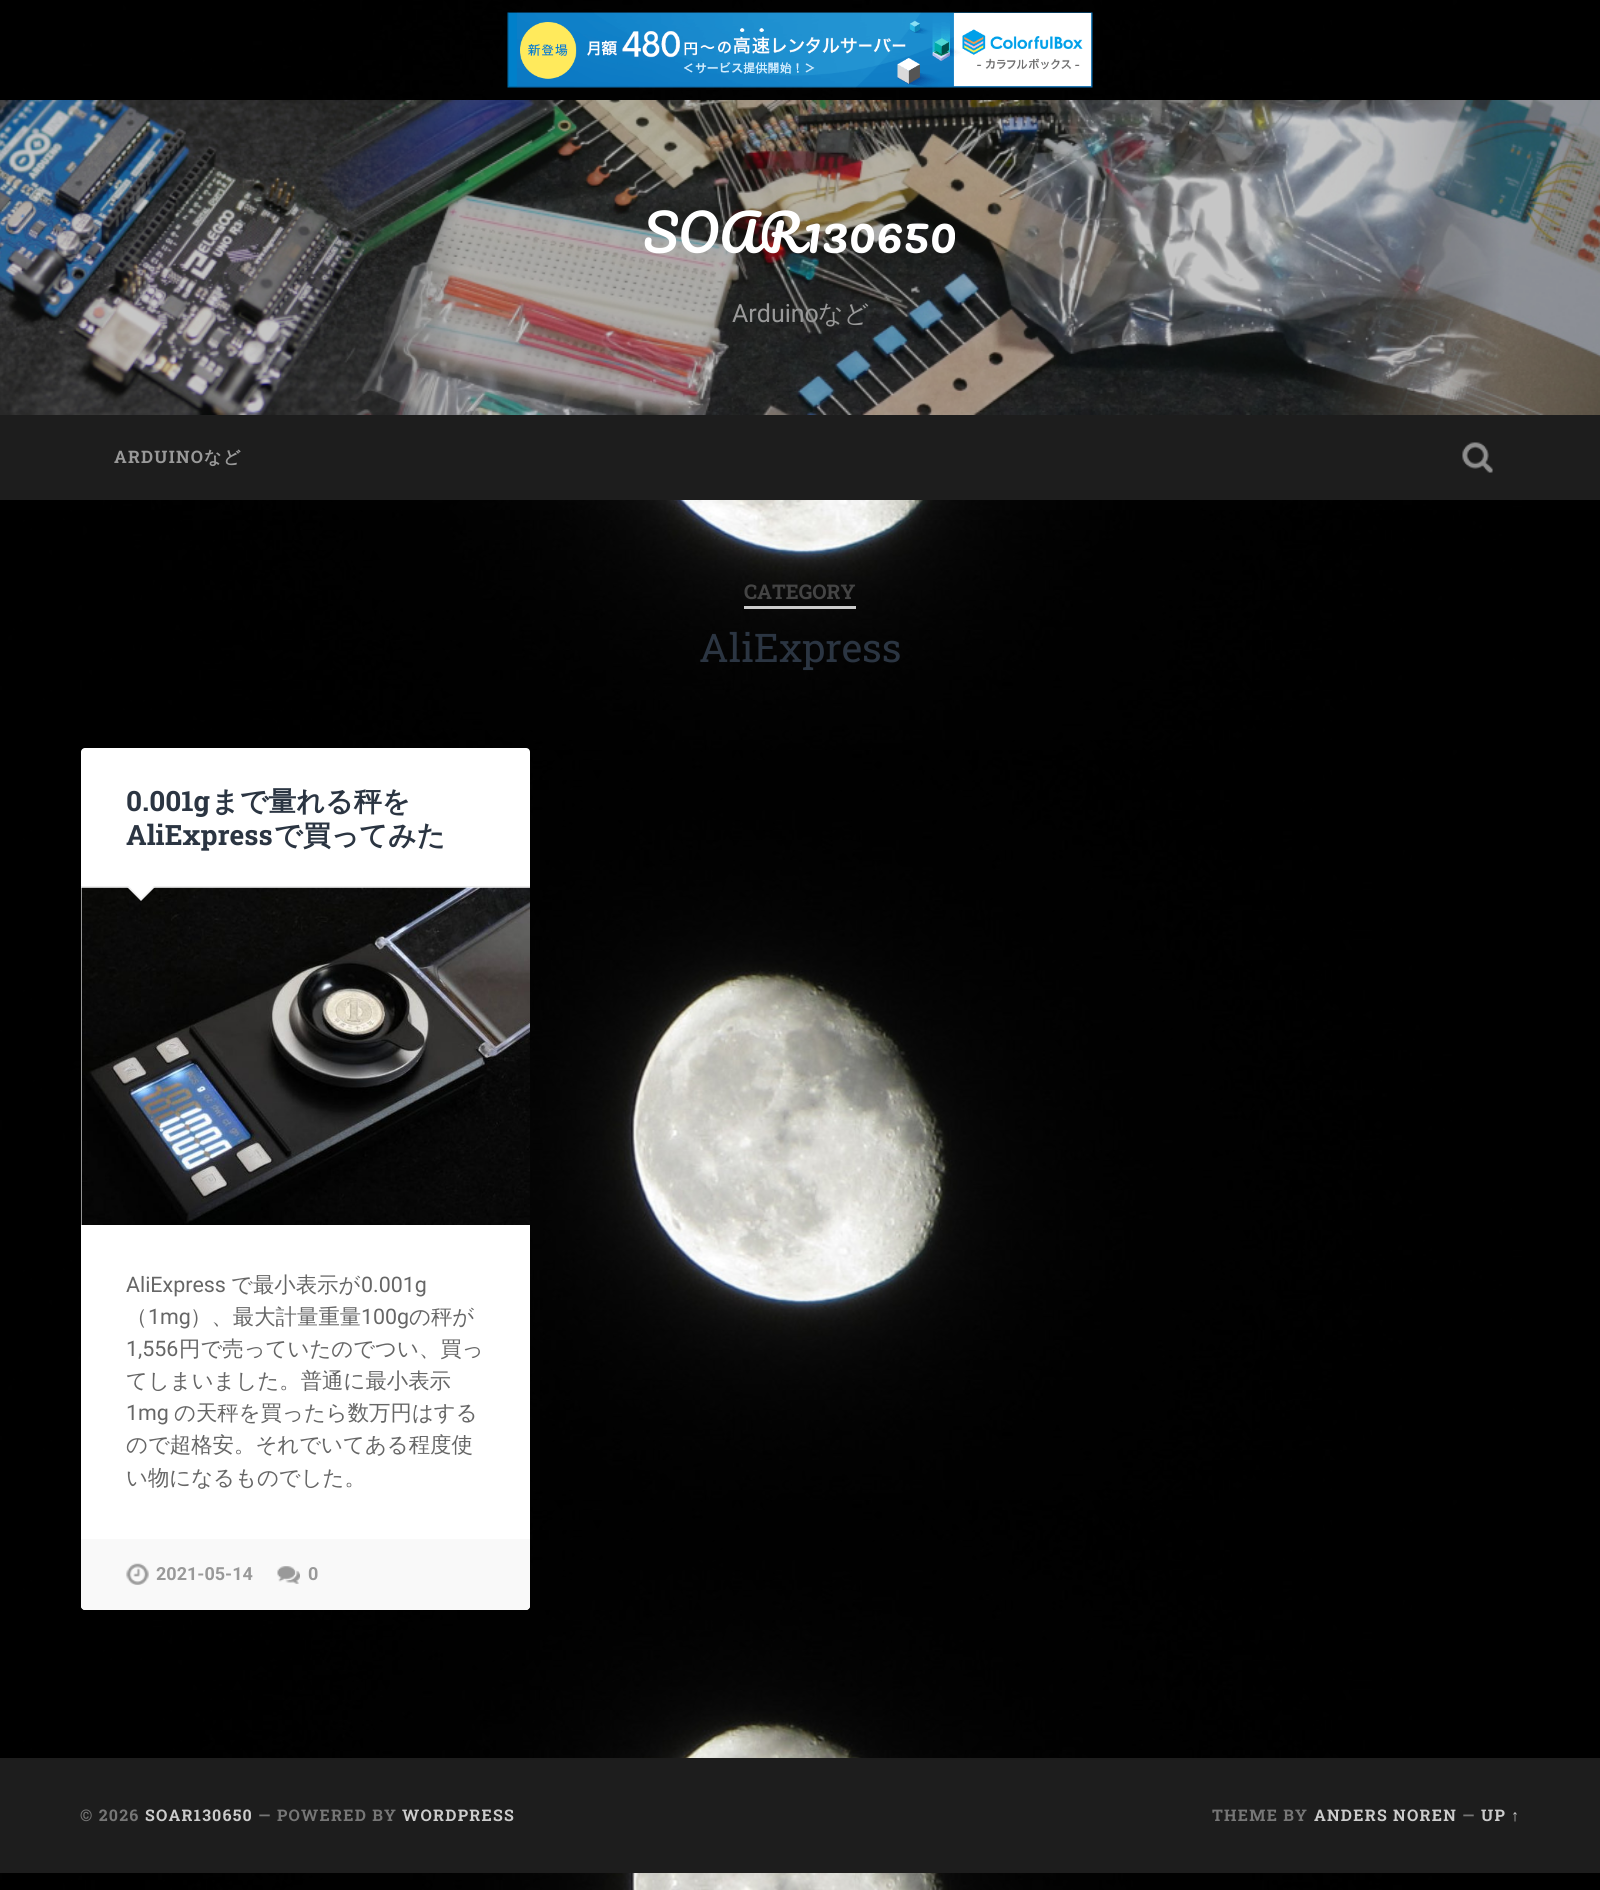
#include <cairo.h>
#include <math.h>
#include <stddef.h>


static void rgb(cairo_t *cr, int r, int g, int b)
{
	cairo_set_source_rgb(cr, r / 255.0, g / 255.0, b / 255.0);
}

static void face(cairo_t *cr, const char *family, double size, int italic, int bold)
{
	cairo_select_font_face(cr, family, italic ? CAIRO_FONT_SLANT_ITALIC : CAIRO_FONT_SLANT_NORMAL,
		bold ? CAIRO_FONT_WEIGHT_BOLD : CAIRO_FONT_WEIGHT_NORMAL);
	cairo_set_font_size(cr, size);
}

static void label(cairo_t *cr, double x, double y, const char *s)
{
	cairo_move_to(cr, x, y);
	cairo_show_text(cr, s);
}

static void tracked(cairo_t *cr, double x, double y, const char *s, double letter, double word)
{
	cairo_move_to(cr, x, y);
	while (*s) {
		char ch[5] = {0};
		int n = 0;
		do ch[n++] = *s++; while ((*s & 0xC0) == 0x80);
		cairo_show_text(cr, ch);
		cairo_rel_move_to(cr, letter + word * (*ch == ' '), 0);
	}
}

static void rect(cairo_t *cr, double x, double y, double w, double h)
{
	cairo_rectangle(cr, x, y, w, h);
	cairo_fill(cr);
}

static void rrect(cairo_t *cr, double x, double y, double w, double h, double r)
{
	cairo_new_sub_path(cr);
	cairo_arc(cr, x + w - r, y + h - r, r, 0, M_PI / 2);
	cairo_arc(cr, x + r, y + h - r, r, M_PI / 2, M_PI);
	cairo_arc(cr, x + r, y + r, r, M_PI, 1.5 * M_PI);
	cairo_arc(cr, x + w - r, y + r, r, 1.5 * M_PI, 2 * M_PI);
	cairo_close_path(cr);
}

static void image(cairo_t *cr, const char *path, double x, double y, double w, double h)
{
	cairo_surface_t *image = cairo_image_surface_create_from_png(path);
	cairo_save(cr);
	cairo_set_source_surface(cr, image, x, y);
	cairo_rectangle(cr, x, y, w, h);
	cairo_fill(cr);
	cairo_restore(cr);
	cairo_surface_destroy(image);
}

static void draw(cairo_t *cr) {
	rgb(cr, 255, 255, 255);
	cairo_paint(cr);
	image(cr, "image0.png", 0, 0, 1600, 1890);
	image(cr, "image1.png", 507, 12, 586, 76);
	image(cr, "image2.png", 0, 100, 1600, 315);
	face(cr, "Pacifico", 50.5, 0, 0);
	rgb(cr, 255, 255, 255);
	label(cr, 643, 253, "SOAR130650");
	face(cr, "Roboto", 25, 0, 0);
	rgb(cr, 153, 153, 153);
	label(cr, 732, 322, "Arduino");
	face(cr, "WenQuanYi Zen Hei Medium", 25, 0, 0);
	label(cr, 818, 322, "など");
	rgb(cr, 29, 29, 29);
	rect(cr, 0, 415, 1600, 85);
	face(cr, "Roboto Slab", 17.25, 0, 1);
	rgb(cr, 153, 153, 153);
	tracked(cr, 114, 463, "ARDUINO", 1.25, 0);
	face(cr, "WenQuanYi Zen Hei", 17.25, 0, 1);
	tracked(cr, 204, 463, "など", 1.25, 0);
	image(cr, "image3.png", 1462, 442, 31, 31);
	rgb(cr, 204, 204, 204);
	rect(cr, 744, 606, 112, 3);
	face(cr, "Roboto Slab", 20.25, 0, 1);
	rgb(cr, 68, 68, 68);
	label(cr, 744, 599, "CATEGORY");
	face(cr, "Roboto Slab", 39.5, 0, 0);
	rgb(cr, 43, 53, 66);
	label(cr, 699, 662, "AliExpress");
	rgb(cr, 255, 255, 255);
	rrect(cr, 81, 748, 449, 862, 4);
	cairo_fill(cr);
	rgb(cr, 238, 238, 238);
	rect(cr, 81, 886, 449, 1);
	face(cr, "Roboto Slab", 28, 0, 1);
	rgb(cr, 43, 53, 66);
	label(cr, 126, 811, "0.001g");
	face(cr, "WenQuanYi Zen Hei", 28, 0, 1);
	label(cr, 211, 811, "まで量れる秤を");
	face(cr, "Roboto Slab", 28, 0, 1);
	label(cr, 126, 845, "AliExpress");
	face(cr, "WenQuanYi Zen Hei", 28, 0, 1);
	label(cr, 274, 845, "で買ってみた");
	image(cr, "image4.png", 81, 887, 449, 338);
	rgb(cr, 238, 238, 238);
	cairo_new_path(cr);
	cairo_move_to(cr, 126, 886);
	cairo_line_to(cr, 156, 886);
	cairo_line_to(cr, 141, 901);
	cairo_close_path(cr);
	cairo_fill(cr);
	rgb(cr, 255, 255, 255);
	cairo_new_path(cr);
	cairo_move_to(cr, 127.5, 885);
	cairo_line_to(cr, 155, 885);
	cairo_line_to(cr, 141, 899);
	cairo_close_path(cr);
	cairo_fill(cr);
	face(cr, "Roboto", 21.4, 0, 0);
	rgb(cr, 102, 102, 102);
	label(cr, 126, 1292, "AliExpress");
	face(cr, "WenQuanYi Zen Hei Medium", 21.4, 0, 0);
	label(cr, 231, 1292, "で最小表示が");
	face(cr, "Roboto", 21.4, 0, 0);
	label(cr, 361, 1292, "0.001g");
	face(cr, "WenQuanYi Zen Hei Medium", 21.4, 0, 0);
	label(cr, 126, 1324, "（");
	face(cr, "Roboto", 21.4, 0, 0);
	label(cr, 148, 1324, "1mg");
	face(cr, "WenQuanYi Zen Hei Medium", 21.4, 0, 0);
	label(cr, 190, 1324, "）、最大計量重量");
	face(cr, "Roboto", 21.4, 0, 0);
	label(cr, 361, 1324, "100g");
	face(cr, "WenQuanYi Zen Hei Medium", 21.4, 0, 0);
	label(cr, 409, 1324, "の秤が");
	face(cr, "Roboto", 21.4, 0, 0);
	label(cr, 126, 1356, "1,556");
	face(cr, "WenQuanYi Zen Hei Medium", 21.4, 0, 0);
	label(cr, 179, 1356, "円で売っていたのでつい、買っ");
	label(cr, 126, 1388, "てしまいました。普通に最小表示");
	face(cr, "Roboto", 21.4, 0, 0);
	label(cr, 126, 1420, "1mg");
	face(cr, "WenQuanYi Zen Hei Medium", 21.4, 0, 0);
	label(cr, 174, 1420, "の天秤を買ったら数万円はする");
	label(cr, 126, 1452, "ので超格安。それでいてある程度使");
	label(cr, 126, 1485, "い物になるものでした。");
	rgb(cr, 249, 249, 249);
	cairo_new_path(cr);
	cairo_move_to(cr, 81, 1539);
	cairo_line_to(cr, 530, 1539);
	cairo_line_to(cr, 530, 1606);
	cairo_curve_to(cr, 530, 1608, 528, 1610, 526, 1610);
	cairo_line_to(cr, 85, 1610);
	cairo_curve_to(cr, 83, 1610, 81, 1608, 81, 1606);
	cairo_close_path(cr);
	cairo_fill(cr);
	image(cr, "image5.png", 126, 1563, 23, 22);
	face(cr, "Roboto", 18, 0, 1);
	rgb(cr, 153, 153, 153);
	label(cr, 156, 1580, "2021-05-14");
	image(cr, "image6.png", 277, 1566, 23, 18);
	label(cr, 308, 1580, "0");
	rgb(cr, 29, 29, 29);
	rect(cr, 0, 1758, 1600, 115);
	face(cr, "Roboto Slab", 16, 0, 1);
	rgb(cr, 118, 118, 118);
	tracked(cr, 80, 1821, "© 2026", 1.25, 0);
	rgb(cr, 204, 204, 204);
	tracked(cr, 145, 1821, "SOAR130650", 1.25, 0);
	rgb(cr, 118, 118, 118);
	tracked(cr, 258, 1821, "— POWERED BY", 1.25, 0);
	rgb(cr, 204, 204, 204);
	tracked(cr, 402, 1821, "WORDPRESS", 1.25, 0);
	rgb(cr, 118, 118, 118);
	tracked(cr, 1212, 1821, "THEME BY", 1.25, 0);
	rgb(cr, 204, 204, 204);
	tracked(cr, 1314, 1821, "ANDERS NOREN", 1.25, 0);
	rgb(cr, 118, 118, 118);
	tracked(cr, 1462, 1821, "—", 1.25, 0);
	rgb(cr, 204, 204, 204);
	tracked(cr, 1481, 1821, "UP", 1.25, 0);
	face(cr, "Liberation Sans", 16, 0, 1);
	tracked(cr, 1511, 1821, "↑", 1.25, 0);
}

int main(void) {
	cairo_surface_t *surface = cairo_image_surface_create(CAIRO_FORMAT_RGB24, 1600, 1890);
	cairo_t *cr = cairo_create(surface);
	cairo_font_options_t *options = cairo_font_options_create();
	cairo_font_options_set_hint_metrics(options, CAIRO_HINT_METRICS_OFF);
	cairo_font_options_set_hint_style(options, CAIRO_HINT_STYLE_NONE);
	cairo_set_font_options(cr, options);
	cairo_set_miter_limit(cr, 4);
	draw(cr);
	cairo_surface_write_to_png(surface, "render.png");
	cairo_font_options_destroy(options);
	cairo_destroy(cr);
	cairo_surface_destroy(surface);
	return 0;
}
